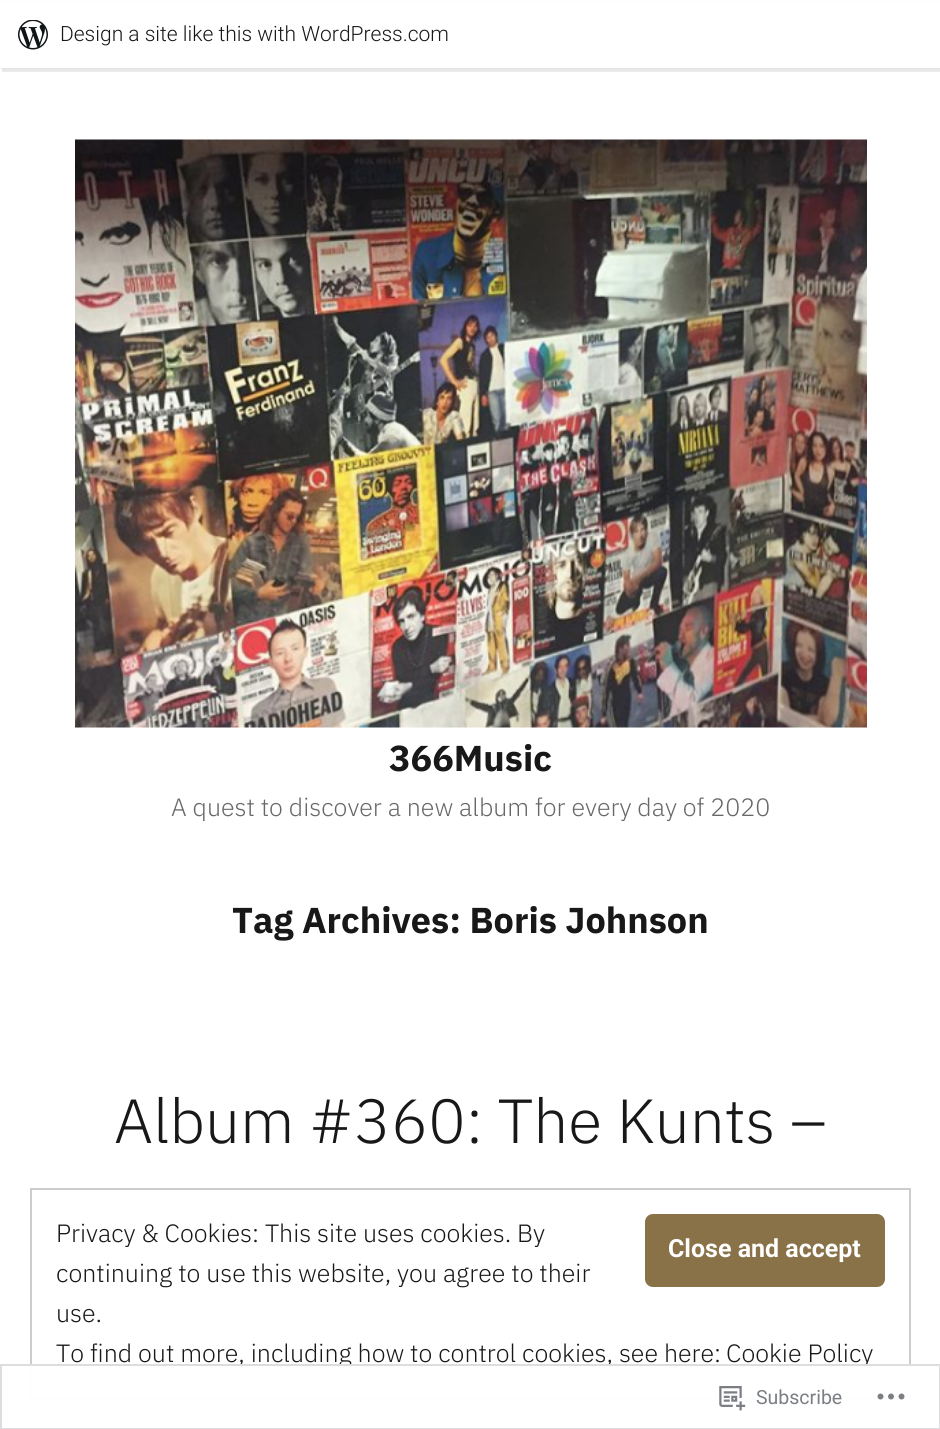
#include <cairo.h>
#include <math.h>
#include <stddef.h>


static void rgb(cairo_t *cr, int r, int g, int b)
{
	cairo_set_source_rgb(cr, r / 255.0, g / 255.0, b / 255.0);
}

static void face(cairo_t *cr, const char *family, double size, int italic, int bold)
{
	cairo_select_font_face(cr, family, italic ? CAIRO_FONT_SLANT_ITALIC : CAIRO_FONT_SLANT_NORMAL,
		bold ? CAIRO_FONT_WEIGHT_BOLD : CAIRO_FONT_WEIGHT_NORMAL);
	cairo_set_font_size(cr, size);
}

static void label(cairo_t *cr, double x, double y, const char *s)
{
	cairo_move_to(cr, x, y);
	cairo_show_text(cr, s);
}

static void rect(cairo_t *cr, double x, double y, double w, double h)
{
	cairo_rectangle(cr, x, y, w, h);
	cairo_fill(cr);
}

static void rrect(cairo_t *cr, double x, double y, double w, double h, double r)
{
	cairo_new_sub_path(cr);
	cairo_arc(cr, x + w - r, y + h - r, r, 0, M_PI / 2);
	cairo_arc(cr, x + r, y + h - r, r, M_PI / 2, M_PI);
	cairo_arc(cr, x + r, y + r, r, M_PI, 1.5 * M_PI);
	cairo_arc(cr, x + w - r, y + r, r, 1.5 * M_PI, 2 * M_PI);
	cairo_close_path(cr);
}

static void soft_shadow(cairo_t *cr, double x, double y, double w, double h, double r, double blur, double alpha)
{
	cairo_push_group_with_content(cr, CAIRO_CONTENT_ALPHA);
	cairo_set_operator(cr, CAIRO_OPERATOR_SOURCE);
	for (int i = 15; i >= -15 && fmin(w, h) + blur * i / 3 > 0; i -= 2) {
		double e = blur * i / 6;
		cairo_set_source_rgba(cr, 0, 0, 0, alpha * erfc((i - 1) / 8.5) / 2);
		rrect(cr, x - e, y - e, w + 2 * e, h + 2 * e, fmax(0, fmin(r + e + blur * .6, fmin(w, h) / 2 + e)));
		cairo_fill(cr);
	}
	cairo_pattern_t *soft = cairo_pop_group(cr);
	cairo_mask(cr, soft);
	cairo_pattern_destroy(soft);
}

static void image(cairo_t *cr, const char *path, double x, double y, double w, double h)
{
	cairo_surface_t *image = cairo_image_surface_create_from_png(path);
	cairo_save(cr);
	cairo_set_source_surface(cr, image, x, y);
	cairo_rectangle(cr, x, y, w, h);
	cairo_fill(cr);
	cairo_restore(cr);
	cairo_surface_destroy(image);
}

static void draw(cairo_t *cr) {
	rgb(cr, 255, 255, 255);
	cairo_paint(cr);
	rgb(cr, 0, 0, 0);
	soft_shadow(cr, 0, 2, 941, 67, 0, 1.5, 0.05);
	cairo_set_source_rgba(cr, 0, 0, 0, 0.08);
	cairo_new_path(cr);
	cairo_move_to(cr, 2, 68);
	cairo_line_to(cr, 2, 72);
	cairo_line_to(cr, 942, 72);
	cairo_line_to(cr, 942, 5);
	cairo_line_to(cr, 940, 5);
	cairo_line_to(cr, 940, 68);
	cairo_close_path(cr);
	cairo_fill(cr);
	rgb(cr, 255, 255, 255);
	rect(cr, 0, 1, 940, 67);
	image(cr, "image0.png", 18, 20, 30, 30);
	face(cr, "Roboto Light", 21, 0, 0);
	rgb(cr, 24, 24, 24);
	label(cr, 60, 41, "Design a site like this with WordPress.com");
	image(cr, "image1.png", 75, 139, 792, 589);
	face(cr, "IBM Plex Sans", 36, 0, 1);
	label(cr, 389, 771, "366Music");
	face(cr, "IBM Plex Sans Light", 25, 0, 0);
	rgb(cr, 104, 104, 104);
	label(cr, 171, 816, "A quest to discover a new album for every day of 2020");
	face(cr, "IBM Plex Sans", 36, 0, 1);
	rgb(cr, 24, 24, 24);
	label(cr, 232, 933, "Tag Archives: Boris Johnson");
	face(cr, "IBM Plex Sans Light", 62.25, 0, 0);
	label(cr, 114, 1143, "Album #360: The Kunts –");
	image(cr, "image2.png", 352, 1428, 7, 1);
	cairo_rectangle(cr, 31, 1189, 879, 210);
	rgb(cr, 204, 204, 204);
	cairo_stroke(cr);
	face(cr, "IBM Plex Sans Light", 25, 0, 0);
	rgb(cr, 24, 24, 24);
	label(cr, 56, 1242, "Privacy & Cookies: This site uses cookies. By");
	rgb(cr, 137, 114, 72);
	rrect(cr, 645, 1214, 240, 73, 8);
	cairo_fill(cr);
	face(cr, "Roboto", 25, 0, 1);
	rgb(cr, 255, 255, 255);
	label(cr, 668, 1257, "Close and accept");
	face(cr, "IBM Plex Sans Light", 25, 0, 0);
	rgb(cr, 24, 24, 24);
	label(cr, 56, 1282, "continuing to use this website, you agree to their");
	label(cr, 56, 1322, "use.");
	label(cr, 56, 1362, "To find out more, including how to control cookies, see here:");
	rect(cr, 726, 1364, 147, 2);
	label(cr, 726, 1362, "Cookie Policy");
	cairo_set_source_rgba(cr, 1, 1, 1, 0.98);
	rect(cr, 30, 1364, 881, 65);
	cairo_rectangle(cr, 1, 1365, 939, 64);
	cairo_set_source_rgba(cr, 0.863, 0.863, 0.871, 0.98);
	cairo_stroke(cr);
	image(cr, "image3.png", 719, 1386, 27, 25);
	face(cr, "Roboto", 19.5, 0, 0);
	rgb(cr, 123, 127, 132);
	label(cr, 756, 1404, "Subscribe");
	image(cr, "image4.png", 877, 1393, 28, 7);
}

int main(void) {
	cairo_surface_t *surface = cairo_image_surface_create(CAIRO_FORMAT_RGB24, 940, 1429);
	cairo_t *cr = cairo_create(surface);
	cairo_font_options_t *options = cairo_font_options_create();
	cairo_font_options_set_hint_metrics(options, CAIRO_HINT_METRICS_OFF);
	cairo_font_options_set_hint_style(options, CAIRO_HINT_STYLE_NONE);
	cairo_set_font_options(cr, options);
	cairo_set_miter_limit(cr, 4);
	draw(cr);
	cairo_surface_write_to_png(surface, "render.png");
	cairo_font_options_destroy(options);
	cairo_destroy(cr);
	cairo_surface_destroy(surface);
	return 0;
}
